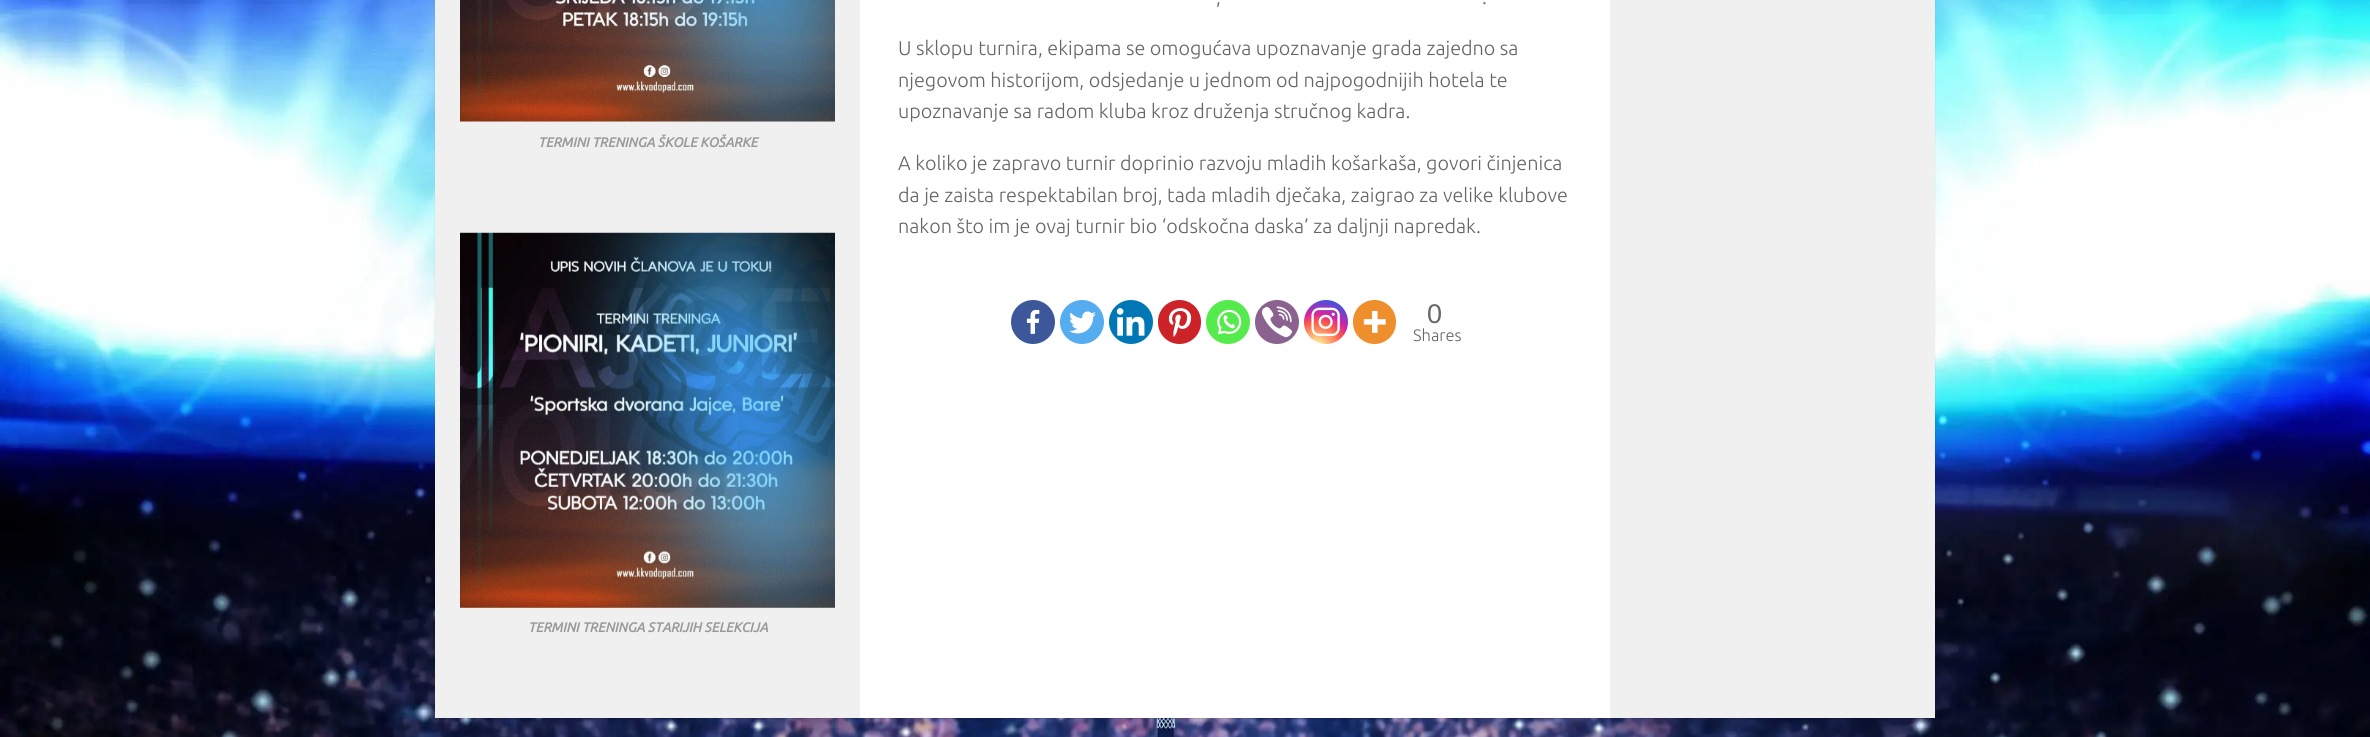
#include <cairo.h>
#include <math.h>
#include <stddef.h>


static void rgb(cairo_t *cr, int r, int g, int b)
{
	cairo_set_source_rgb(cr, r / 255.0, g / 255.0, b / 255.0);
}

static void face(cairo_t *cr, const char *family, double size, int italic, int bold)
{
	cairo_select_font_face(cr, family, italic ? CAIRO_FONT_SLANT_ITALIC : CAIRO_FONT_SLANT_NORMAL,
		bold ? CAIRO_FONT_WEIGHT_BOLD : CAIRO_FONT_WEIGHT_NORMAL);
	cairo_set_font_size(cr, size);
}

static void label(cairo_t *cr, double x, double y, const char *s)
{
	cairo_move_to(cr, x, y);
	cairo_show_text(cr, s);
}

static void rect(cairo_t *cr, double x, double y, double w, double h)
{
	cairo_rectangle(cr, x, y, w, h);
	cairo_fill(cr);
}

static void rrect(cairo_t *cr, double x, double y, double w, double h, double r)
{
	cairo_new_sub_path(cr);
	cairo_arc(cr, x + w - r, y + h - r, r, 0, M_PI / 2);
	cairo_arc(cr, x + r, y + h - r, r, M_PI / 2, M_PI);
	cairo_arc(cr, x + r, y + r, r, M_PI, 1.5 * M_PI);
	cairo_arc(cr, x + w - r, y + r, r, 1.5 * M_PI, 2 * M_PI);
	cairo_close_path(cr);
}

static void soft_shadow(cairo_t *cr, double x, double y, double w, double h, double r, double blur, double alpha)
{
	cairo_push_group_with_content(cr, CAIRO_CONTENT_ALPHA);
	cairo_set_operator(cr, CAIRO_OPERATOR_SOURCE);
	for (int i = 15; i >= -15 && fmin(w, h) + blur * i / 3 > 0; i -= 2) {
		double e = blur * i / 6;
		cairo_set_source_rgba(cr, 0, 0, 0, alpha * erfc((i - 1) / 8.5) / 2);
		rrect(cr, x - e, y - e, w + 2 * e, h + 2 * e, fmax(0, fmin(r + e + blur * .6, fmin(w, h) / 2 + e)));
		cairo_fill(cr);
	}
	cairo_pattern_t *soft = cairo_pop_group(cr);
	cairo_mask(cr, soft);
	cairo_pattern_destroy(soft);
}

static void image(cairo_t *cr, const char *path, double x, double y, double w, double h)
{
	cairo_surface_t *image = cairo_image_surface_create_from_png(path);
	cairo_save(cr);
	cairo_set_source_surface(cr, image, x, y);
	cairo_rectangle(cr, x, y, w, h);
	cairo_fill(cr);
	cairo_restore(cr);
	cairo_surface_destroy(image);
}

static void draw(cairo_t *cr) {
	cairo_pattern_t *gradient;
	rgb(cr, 255, 255, 255);
	cairo_paint(cr);
	image(cr, "image0.png", 0, 0, 2370, 737);
	rgb(cr, 0, 0, 0);
	soft_shadow(cr, 435, -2, 1500, 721, 0, 0.5, 0.1);
	rgb(cr, 255, 255, 255);
	rect(cr, 860, 0, 750, 718);
	rgb(cr, 240, 240, 240);
	rect(cr, 435, 0, 425, 718);
	rect(cr, 1610, 0, 325, 718);
	image(cr, "image1.png", 460, 0, 375, 122);
	face(cr, "Ubuntu", 13.4, 1, 1);
	rgb(cr, 153, 153, 153);
	label(cr, 538, 147, "TERMINI TRENINGA ŠKOLE KOŠARKE");
	image(cr, "image2.png", 460, 232, 375, 376);
	label(cr, 528, 632, "TERMINI TRENINGA STARIJIH SELEKCIJA");
	face(cr, "Ubuntu Light", 19.8, 0, 0);
	rgb(cr, 102, 102, 102);
	label(cr, 1216, 4, ",");
	label(cr, 1482, 4, ".");
	label(cr, 898, 55, "U sklopu turnira, ekipama se omogućava upoznavanje grada zajedno sa");
	label(cr, 898, 87, "njegovom historijom, odsjedanje u jednom od najpogodnijih hotela te");
	label(cr, 898, 118, "upoznavanje sa radom kluba kroz druženja stručnog kadra.");
	label(cr, 898, 170, "A koliko je zapravo turnir doprinio razvoju mladih košarkaša, govori činjenica");
	label(cr, 898, 202, "da je zaista respektabilan broj, tada mladih dječaka, zaigrao za velike klubove");
	label(cr, 898, 233, "nakon što im je ovaj turnir bio ‘odskočna daska’ za daljnji napredak.");
	rgb(cr, 60, 88, 154);
	cairo_new_path(cr);
	cairo_arc(cr, 1033, 322, 22, 0, 2 * M_PI);
	cairo_fill(cr);
	image(cr, "image3.png", 1026, 309, 14, 25);
	rgb(cr, 85, 172, 238);
	cairo_arc(cr, 1082, 322, 22, 0, 2 * M_PI);
	cairo_fill(cr);
	image(cr, "image4.png", 1069, 311, 27, 23);
	rgb(cr, 0, 119, 181);
	cairo_arc(cr, 1131, 322, 22, 0, 2 * M_PI);
	cairo_fill(cr);
	image(cr, "image5.png", 1116, 308, 29, 28);
	rgb(cr, 204, 35, 41);
	rrect(cr, 1158, 300, 43, 44, 21.5);
	cairo_fill(cr);
	image(cr, "image6.png", 1168, 308, 24, 29);
	rgb(cr, 85, 235, 76);
	cairo_arc(cr, 1228, 322, 22, 0, 2 * M_PI);
	cairo_fill(cr);
	image(cr, "image7.png", 1217, 309, 25, 26);
	rgb(cr, 139, 98, 143);
	cairo_arc(cr, 1277, 322, 22, 0, 2 * M_PI);
	cairo_fill(cr);
	image(cr, "image8.png", 1261, 306, 31, 32);
	gradient = cairo_pattern_create_radial(1317, 347, 0, 1317, 347, 56);
	cairo_pattern_add_color_stop_rgba(gradient, 0, 0.992, 0.957, 0.592, 1);
	cairo_pattern_add_color_stop_rgba(gradient, 0.05, 0.992, 0.957, 0.592, 1);
	cairo_pattern_add_color_stop_rgba(gradient, 0.45, 0.992, 0.349, 0.286, 1);
	cairo_pattern_add_color_stop_rgba(gradient, 0.6, 0.839, 0.141, 0.624, 1);
	cairo_pattern_add_color_stop_rgba(gradient, 0.9, 0.157, 0.353, 0.922, 1);
	cairo_set_source(cr, gradient);
	cairo_pattern_destroy(gradient);
	cairo_arc(cr, 1326, 322, 22, 0, 2 * M_PI);
	cairo_fill(cr);
	image(cr, "image9.png", 1311, 307, 29, 30);
	rgb(cr, 238, 142, 45);
	rrect(cr, 1353, 300, 43, 44, 21.5);
	cairo_fill(cr);
	image(cr, "image10.png", 1363, 310, 23, 23);
	face(cr, "Liberation Sans", 27, 0, 0);
	rgb(cr, 102, 102, 102);
	label(cr, 1427, 323, "0");
	face(cr, "Ubuntu Light", 16.5, 0, 0);
	label(cr, 1413, 341, "Shares");
}

int main(void) {
	cairo_surface_t *surface = cairo_image_surface_create(CAIRO_FORMAT_RGB24, 2370, 737);
	cairo_t *cr = cairo_create(surface);
	cairo_font_options_t *options = cairo_font_options_create();
	cairo_font_options_set_hint_metrics(options, CAIRO_HINT_METRICS_OFF);
	cairo_font_options_set_hint_style(options, CAIRO_HINT_STYLE_NONE);
	cairo_set_font_options(cr, options);
	cairo_set_miter_limit(cr, 4);
	draw(cr);
	cairo_surface_write_to_png(surface, "render.png");
	cairo_font_options_destroy(options);
	cairo_destroy(cr);
	cairo_surface_destroy(surface);
	return 0;
}
